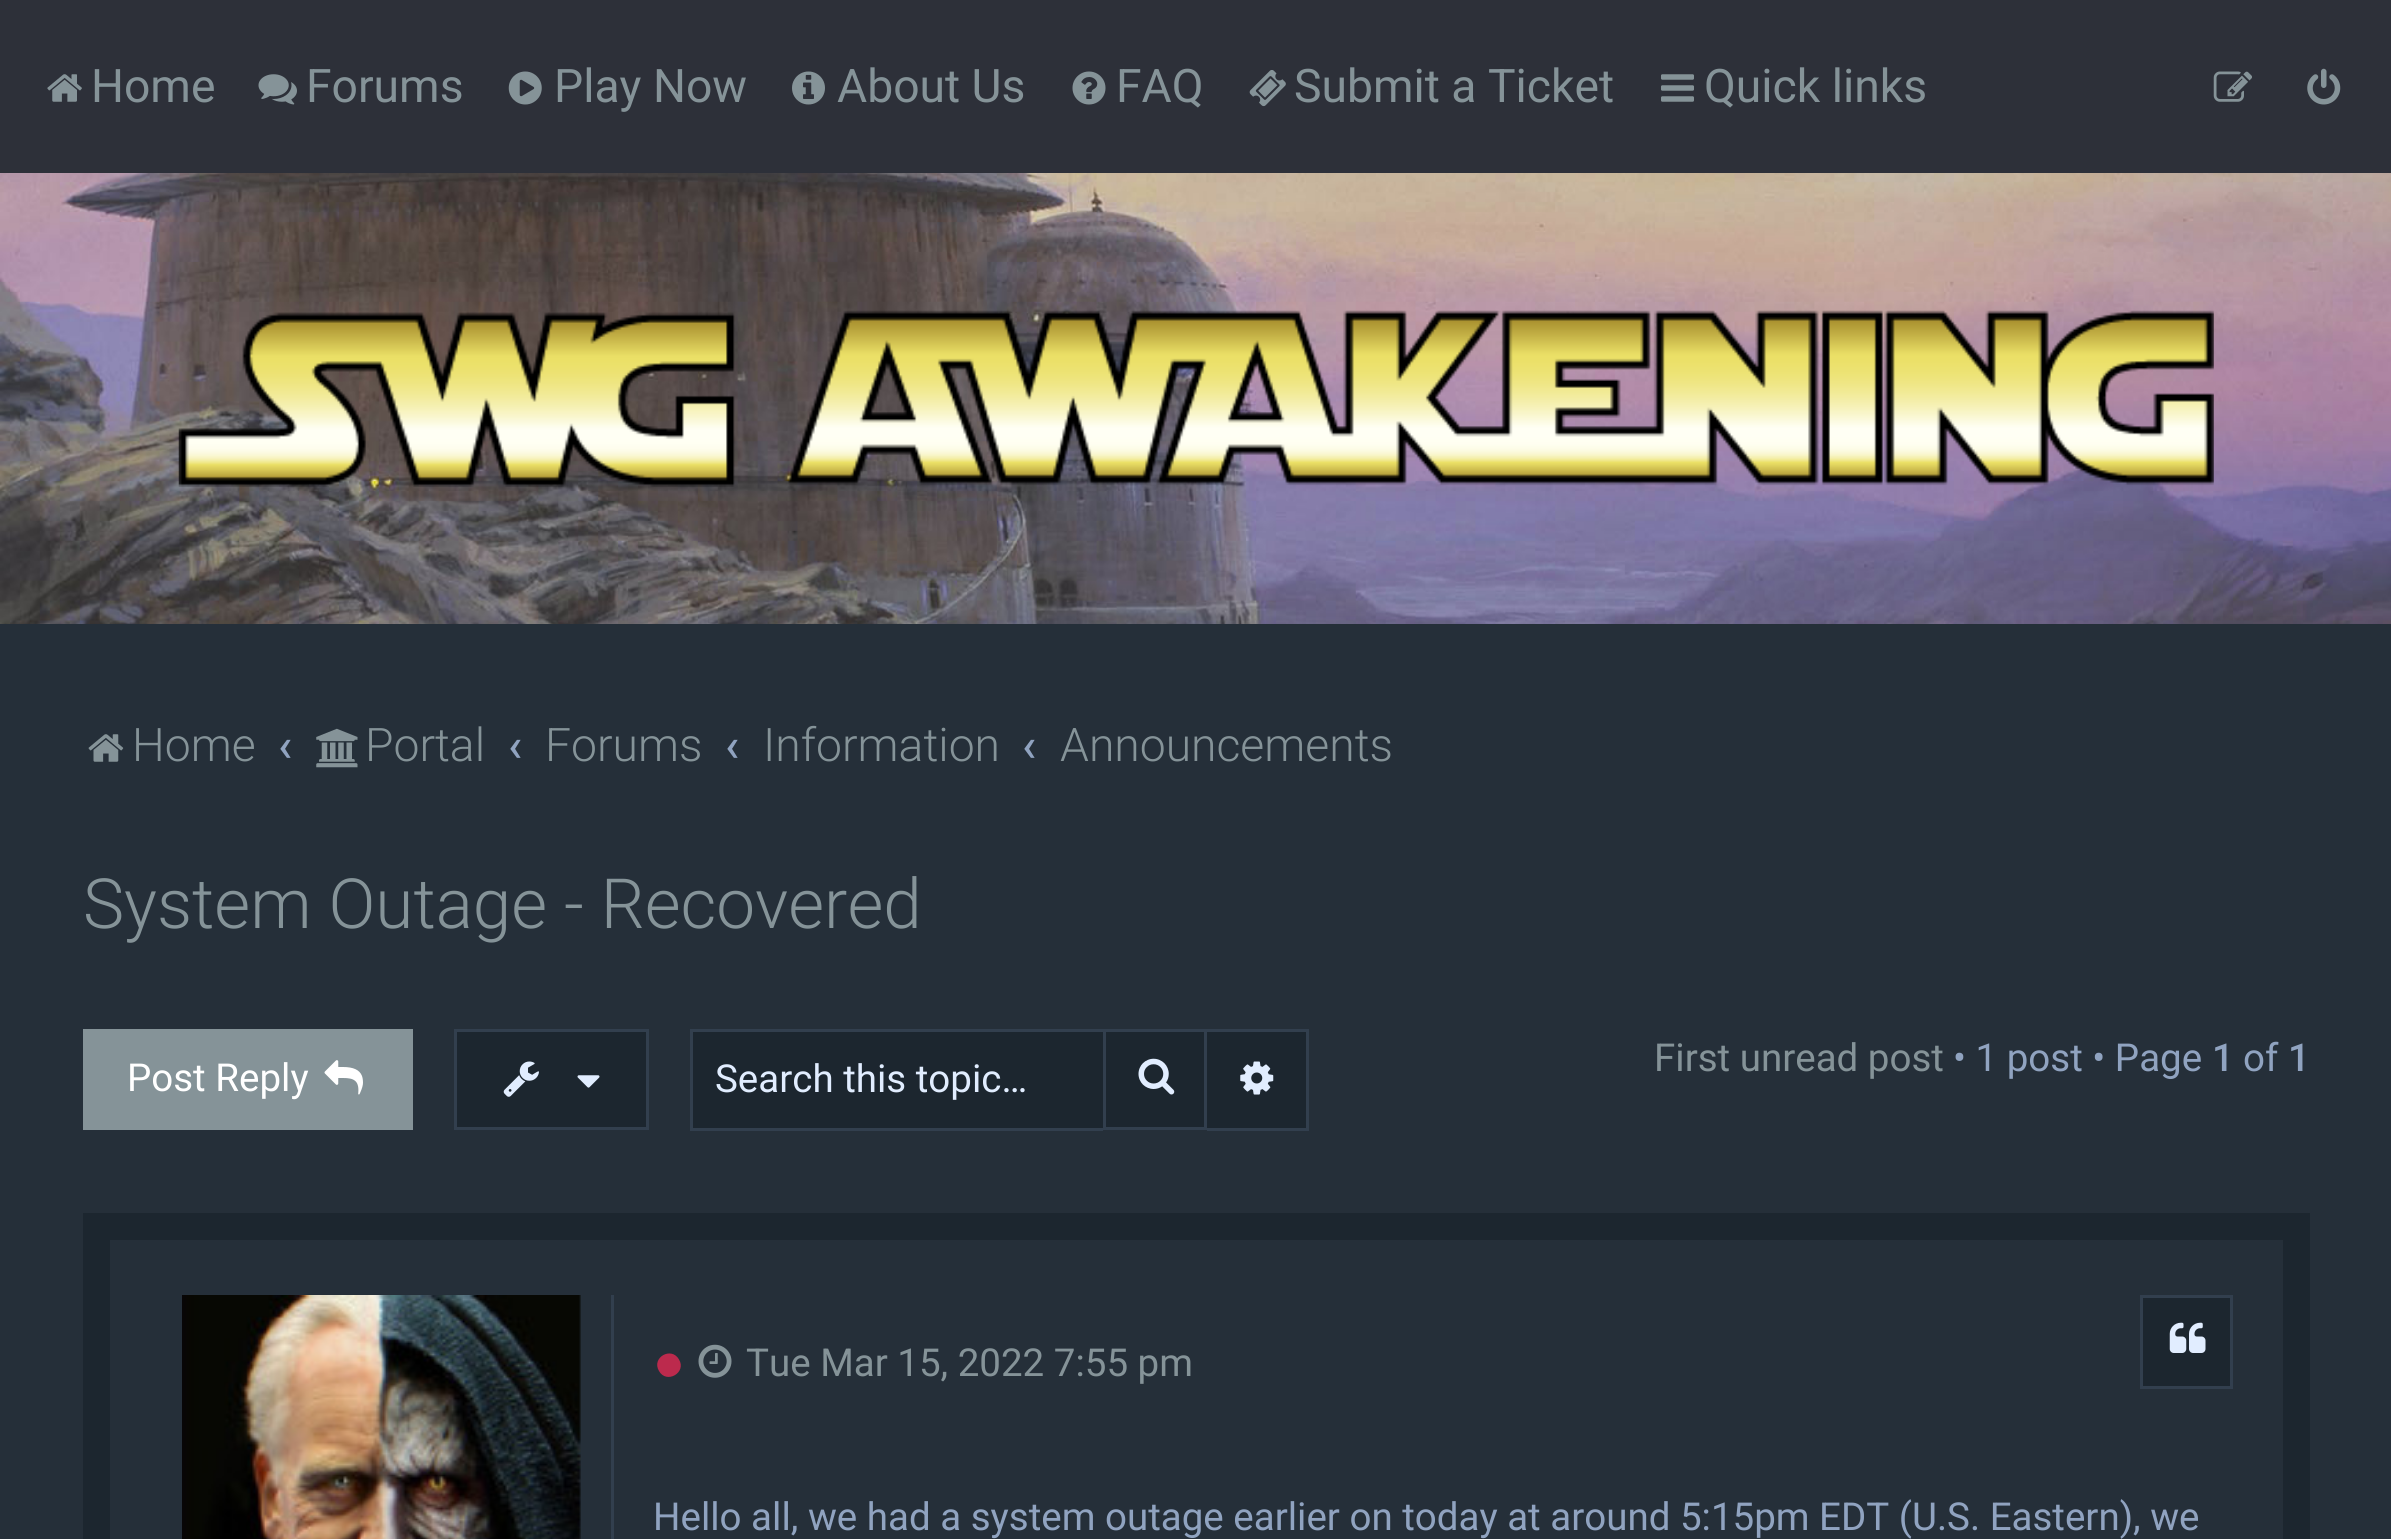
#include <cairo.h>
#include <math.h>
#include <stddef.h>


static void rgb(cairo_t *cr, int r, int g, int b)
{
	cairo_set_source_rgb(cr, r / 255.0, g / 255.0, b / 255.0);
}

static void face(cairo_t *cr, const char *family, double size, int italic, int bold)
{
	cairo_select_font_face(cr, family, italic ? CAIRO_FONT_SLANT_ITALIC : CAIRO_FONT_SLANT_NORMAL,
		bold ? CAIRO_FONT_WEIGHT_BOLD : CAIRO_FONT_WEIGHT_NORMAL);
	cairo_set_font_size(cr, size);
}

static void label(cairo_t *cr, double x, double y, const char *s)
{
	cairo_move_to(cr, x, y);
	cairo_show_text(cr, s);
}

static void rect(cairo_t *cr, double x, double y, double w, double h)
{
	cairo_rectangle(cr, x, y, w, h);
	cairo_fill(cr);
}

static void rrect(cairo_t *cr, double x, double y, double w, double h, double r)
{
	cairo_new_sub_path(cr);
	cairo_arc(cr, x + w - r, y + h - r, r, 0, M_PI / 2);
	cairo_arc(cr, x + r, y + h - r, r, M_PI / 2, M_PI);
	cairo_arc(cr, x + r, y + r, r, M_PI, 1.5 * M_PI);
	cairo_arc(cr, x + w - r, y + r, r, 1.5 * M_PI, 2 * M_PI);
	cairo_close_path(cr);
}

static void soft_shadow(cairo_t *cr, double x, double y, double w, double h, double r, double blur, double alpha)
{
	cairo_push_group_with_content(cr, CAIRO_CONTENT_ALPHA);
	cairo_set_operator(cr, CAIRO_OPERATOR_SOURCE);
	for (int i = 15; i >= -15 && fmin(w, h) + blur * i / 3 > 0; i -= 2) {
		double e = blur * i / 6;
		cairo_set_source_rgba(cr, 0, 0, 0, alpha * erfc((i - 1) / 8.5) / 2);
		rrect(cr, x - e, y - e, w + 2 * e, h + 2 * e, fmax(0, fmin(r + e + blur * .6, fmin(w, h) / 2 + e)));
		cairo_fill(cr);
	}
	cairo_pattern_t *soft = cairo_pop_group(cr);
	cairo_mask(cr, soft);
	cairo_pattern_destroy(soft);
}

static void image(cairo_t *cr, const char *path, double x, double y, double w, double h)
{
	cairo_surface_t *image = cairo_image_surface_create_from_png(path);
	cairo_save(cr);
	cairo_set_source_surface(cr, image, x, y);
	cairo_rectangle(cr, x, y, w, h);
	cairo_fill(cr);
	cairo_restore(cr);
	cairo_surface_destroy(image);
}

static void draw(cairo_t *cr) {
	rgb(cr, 255, 255, 255);
	cairo_paint(cr);
	rgb(cr, 45, 48, 57);
	rect(cr, 0, 0, 2391, 173);
	image(cr, "image0.png", 47, 74, 35, 28);
	face(cr, "Roboto", 46.25, 0, 0);
	rgb(cr, 133, 147, 152);
	label(cr, 91, 102, "Home");
	image(cr, "image1.png", 258, 74, 39, 31);
	label(cr, 306, 102, "Forums");
	image(cr, "image2.png", 508, 71, 34, 34);
	label(cr, 554, 102, "Play Now");
	image(cr, "image3.png", 792, 71, 33, 34);
	label(cr, 837, 102, "About Us");
	image(cr, "image4.png", 1072, 71, 34, 34);
	label(cr, 1116, 102, "FAQ");
	image(cr, "image5.png", 1249, 70, 37, 37);
	label(cr, 1294, 102, "Submit a Ticket");
	image(cr, "image6.png", 1661, 74, 33, 28);
	label(cr, 1704, 102, "Quick links");
	image(cr, "image7.png", 2213, 71, 39, 31);
	image(cr, "image8.png", 2307, 68, 34, 37);
	image(cr, "image20.png", 0, 173, 2391, 451);
	image(cr, "image9.png", 178, 310, 2036, 177);
	rgb(cr, 0, 0, 0);
	soft_shadow(cr, 0, 624, 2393, 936, 0, 7, 0.05);
	rgb(cr, 37, 47, 57);
	rect(cr, 0, 624, 2391, 915);
	image(cr, "image10.png", 88, 734, 36, 28);
	face(cr, "Roboto Light", 46.25, 0, 0);
	rgb(cr, 133, 147, 152);
	label(cr, 132, 761, "Home");
	face(cr, "Roboto Medium", 46.25, 0, 0);
	rgb(cr, 144, 163, 192);
	label(cr, 278, 761, "‹");
	image(cr, "image11.png", 316, 728, 42, 40);
	face(cr, "Roboto Light", 46.25, 0, 0);
	rgb(cr, 133, 147, 152);
	label(cr, 365, 761, "Portal");
	face(cr, "Roboto Medium", 46.25, 0, 0);
	rgb(cr, 144, 163, 192);
	label(cr, 508, 761, "‹");
	face(cr, "Roboto Light", 46.25, 0, 0);
	rgb(cr, 133, 147, 152);
	label(cr, 545, 761, "Forums");
	face(cr, "Roboto Medium", 46.25, 0, 0);
	rgb(cr, 144, 163, 192);
	label(cr, 725, 761, "‹");
	face(cr, "Roboto Light", 46.25, 0, 0);
	rgb(cr, 133, 147, 152);
	label(cr, 763, 761, "Information");
	face(cr, "Roboto Medium", 46.25, 0, 0);
	rgb(cr, 144, 163, 192);
	label(cr, 1022, 761, "‹");
	face(cr, "Roboto Light", 46.25, 0, 0);
	rgb(cr, 133, 147, 152);
	label(cr, 1060, 761, "Announcements");
	face(cr, "Roboto Light", 69.25, 0, 0);
	label(cr, 83, 928, "System Outage - Recovered");
	rect(cr, 83, 1029, 330, 101);
	face(cr, "Roboto", 38.5, 0, 0);
	rgb(cr, 255, 255, 255);
	label(cr, 127, 1091, "Post Reply");
	image(cr, "image12.png", 324, 1060, 39, 35);
	rgb(cr, 28, 38, 47);
	cairo_rectangle(cr, 455.5, 1030.5, 192, 98);
	cairo_fill_preserve(cr);
	rgb(cr, 50, 63, 78);
	cairo_set_line_width(cr, 3);
	cairo_stroke(cr);
	image(cr, "image13.png", 503, 1061, 36, 36);
	image(cr, "image14.png", 577, 1075, 23, 13);
	rgb(cr, 28, 38, 47);
	rect(cr, 693, 1032, 410, 96);
	rgb(cr, 50, 63, 78);
	rect(cr, 690, 1029, 413, 3);
	rect(cr, 690, 1128, 413, 3);
	rect(cr, 690, 1029, 3, 101);
	rgb(cr, 225, 237, 255);
	label(cr, 715, 1092, "Search this topic…");
	rgb(cr, 28, 38, 47);
	cairo_rectangle(cr, 1104.5, 1030.5, 101, 98);
	cairo_fill_preserve(cr);
	rgb(cr, 50, 63, 78);
	cairo_stroke(cr);
	image(cr, "image15.png", 1138, 1058, 37, 37);
	rgb(cr, 28, 38, 47);
	rect(cr, 1207, 1032, 99, 96);
	rgb(cr, 50, 63, 78);
	rect(cr, 1207, 1029, 102, 3);
	rect(cr, 1306, 1029, 3, 101);
	rect(cr, 1207, 1128, 102, 3);
	image(cr, "image16.png", 1240, 1061, 34, 34);
	rgb(cr, 133, 147, 152);
	label(cr, 1654, 1071, "First unread post");
	rgb(cr, 144, 163, 192);
	label(cr, 1953, 1071, "• 1 post • Page");
	face(cr, "Roboto Medium", 38.5, 0, 0);
	label(cr, 2212, 1071, "1");
	face(cr, "Roboto", 38.5, 0, 0);
	label(cr, 2243, 1071, "of");
	face(cr, "Roboto Medium", 38.5, 0, 0);
	label(cr, 2288, 1071, "1");
	rgb(cr, 28, 38, 47);
	rect(cr, 83, 1213, 2227, 326);
	rgb(cr, 37, 47, 57);
	rect(cr, 110, 1240, 2173, 299);
	rgb(cr, 50, 63, 78);
	rect(cr, 611, 1295, 3, 244);
	image(cr, "image17.png", 182, 1295, 399, 244);
	rgb(cr, 188, 42, 77);
	cairo_new_path(cr);
	cairo_move_to(cr, 679, 1359.5);
	cairo_curve_to(cr, 687, 1372.5, 666.5, 1384.5, 659, 1371);
	cairo_curve_to(cr, 651, 1357.5, 671.5, 1346, 679, 1359.5);
	cairo_close_path(cr);
	cairo_fill(cr);
	image(cr, "image18.png", 698, 1344, 34, 34);
	face(cr, "Roboto", 38.5, 0, 0);
	rgb(cr, 133, 147, 152);
	label(cr, 746, 1376, "Tue Mar 15, 2022 7:55 pm");
	rgb(cr, 28, 38, 47);
	cairo_rectangle(cr, 2141.5, 1296.5, 90, 91);
	cairo_fill_preserve(cr);
	rgb(cr, 50, 63, 78);
	cairo_stroke(cr);
	image(cr, "image19.png", 2169, 1322, 37, 31);
	rgb(cr, 144, 163, 192);
	label(cr, 653, 1530, "Hello all, we had a system outage earlier on today at around 5:15pm EDT (U.S. Eastern), we");
}

int main(void) {
	cairo_surface_t *surface = cairo_image_surface_create(CAIRO_FORMAT_RGB24, 2391, 1539);
	cairo_t *cr = cairo_create(surface);
	cairo_font_options_t *options = cairo_font_options_create();
	cairo_font_options_set_hint_metrics(options, CAIRO_HINT_METRICS_OFF);
	cairo_font_options_set_hint_style(options, CAIRO_HINT_STYLE_NONE);
	cairo_set_font_options(cr, options);
	cairo_set_miter_limit(cr, 4);
	draw(cr);
	cairo_surface_write_to_png(surface, "render.png");
	cairo_font_options_destroy(options);
	cairo_destroy(cr);
	cairo_surface_destroy(surface);
	return 0;
}
